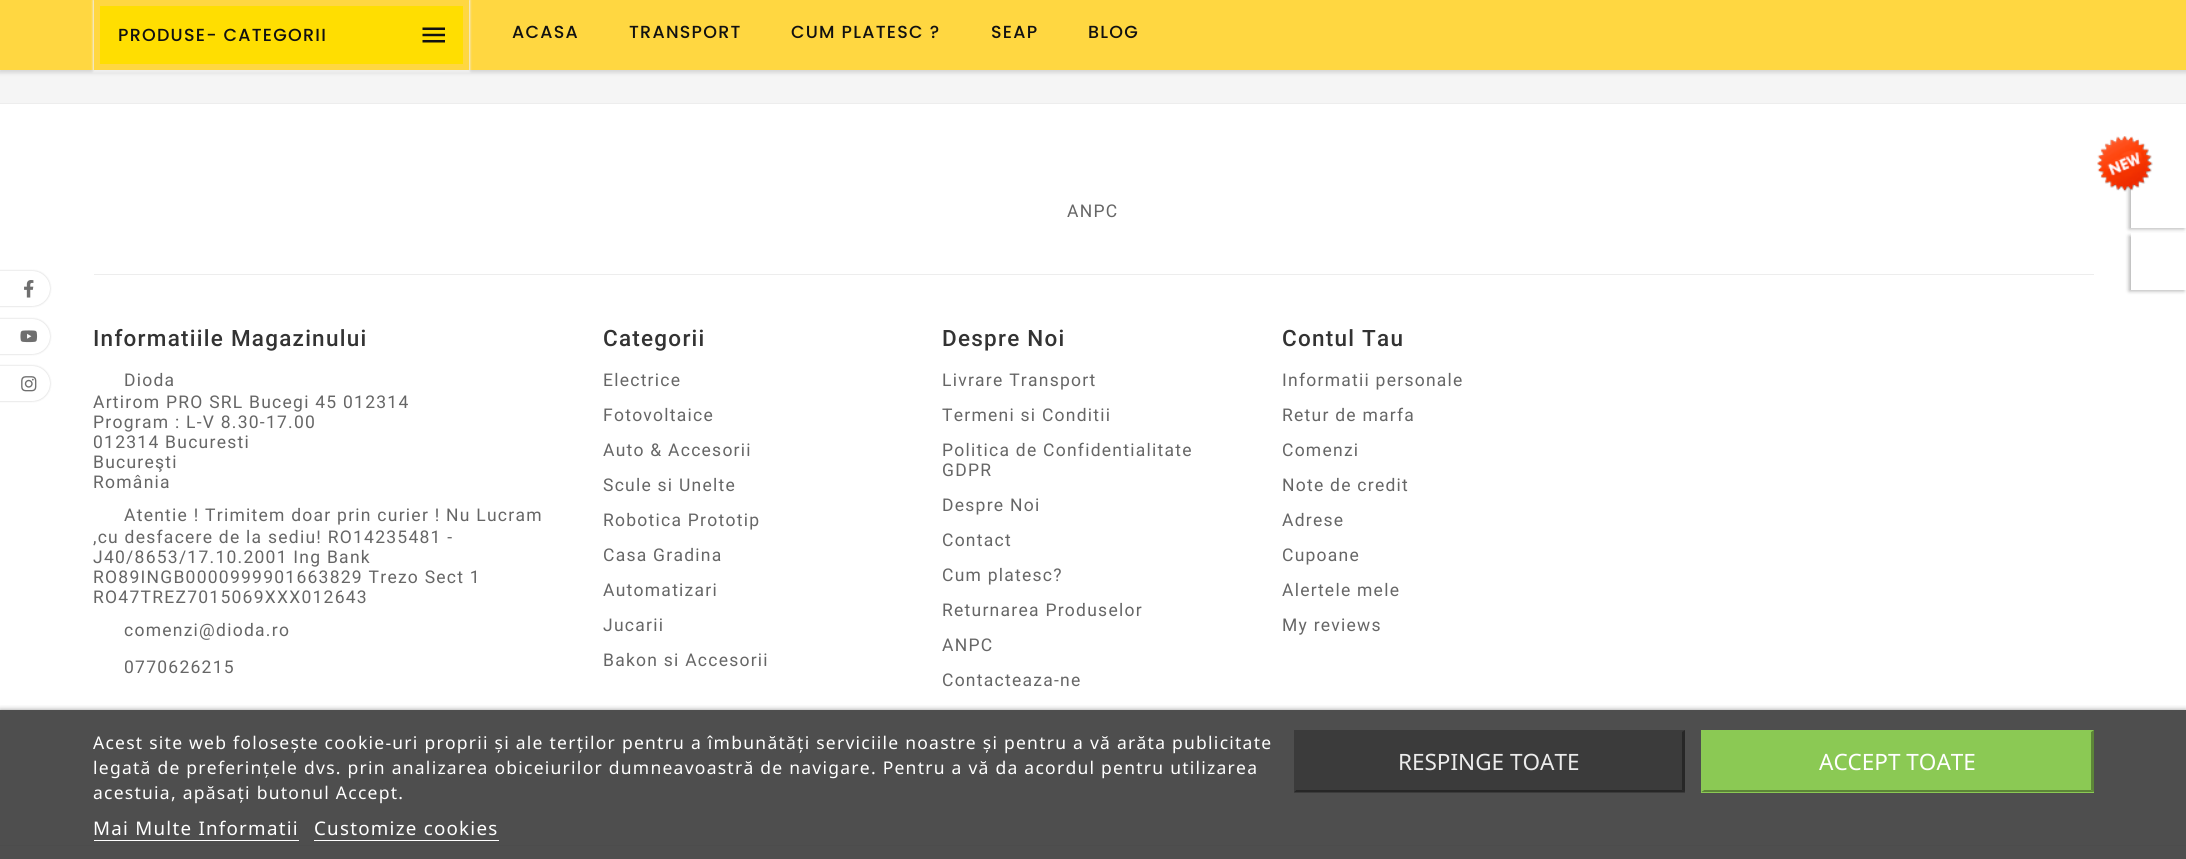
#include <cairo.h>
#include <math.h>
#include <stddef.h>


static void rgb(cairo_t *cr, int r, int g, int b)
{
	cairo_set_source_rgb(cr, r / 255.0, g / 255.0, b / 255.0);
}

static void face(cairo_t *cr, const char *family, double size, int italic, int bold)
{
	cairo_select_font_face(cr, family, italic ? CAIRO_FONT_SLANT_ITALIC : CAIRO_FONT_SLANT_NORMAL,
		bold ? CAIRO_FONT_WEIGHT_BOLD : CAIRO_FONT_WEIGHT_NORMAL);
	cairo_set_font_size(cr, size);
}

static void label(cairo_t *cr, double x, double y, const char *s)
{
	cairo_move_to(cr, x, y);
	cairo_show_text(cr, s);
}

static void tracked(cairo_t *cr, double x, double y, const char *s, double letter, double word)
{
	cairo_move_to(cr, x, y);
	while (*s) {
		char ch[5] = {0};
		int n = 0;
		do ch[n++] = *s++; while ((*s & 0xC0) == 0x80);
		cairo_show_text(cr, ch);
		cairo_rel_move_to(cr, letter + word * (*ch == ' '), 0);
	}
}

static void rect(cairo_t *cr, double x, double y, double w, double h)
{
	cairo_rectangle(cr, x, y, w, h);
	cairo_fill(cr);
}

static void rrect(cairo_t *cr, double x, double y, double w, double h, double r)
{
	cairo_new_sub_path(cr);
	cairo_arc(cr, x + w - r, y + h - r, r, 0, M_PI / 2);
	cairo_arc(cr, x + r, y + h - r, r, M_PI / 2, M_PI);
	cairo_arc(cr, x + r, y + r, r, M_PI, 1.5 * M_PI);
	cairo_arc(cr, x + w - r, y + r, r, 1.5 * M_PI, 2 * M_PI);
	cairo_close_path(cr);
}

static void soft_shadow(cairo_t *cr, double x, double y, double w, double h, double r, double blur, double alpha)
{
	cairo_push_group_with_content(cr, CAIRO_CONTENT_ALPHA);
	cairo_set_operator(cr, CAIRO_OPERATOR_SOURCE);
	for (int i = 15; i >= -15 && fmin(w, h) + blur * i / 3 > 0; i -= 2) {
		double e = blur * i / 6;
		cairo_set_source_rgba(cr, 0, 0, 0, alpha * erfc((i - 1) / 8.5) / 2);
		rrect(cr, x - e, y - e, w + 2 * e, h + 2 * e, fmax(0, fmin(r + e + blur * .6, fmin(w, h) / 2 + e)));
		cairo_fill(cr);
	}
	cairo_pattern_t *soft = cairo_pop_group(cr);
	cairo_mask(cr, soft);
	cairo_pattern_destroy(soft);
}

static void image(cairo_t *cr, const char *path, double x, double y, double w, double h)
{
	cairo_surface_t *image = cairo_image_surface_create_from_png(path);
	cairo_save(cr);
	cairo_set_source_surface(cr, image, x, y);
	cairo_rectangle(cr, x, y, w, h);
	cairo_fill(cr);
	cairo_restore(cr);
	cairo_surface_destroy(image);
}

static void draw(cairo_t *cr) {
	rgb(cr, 245, 245, 245);
	cairo_paint(cr);
	rgb(cr, 128, 128, 128);
	soft_shadow(cr, -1, 0, 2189, 73, 0, 2, 0.27);
	rgb(cr, 255, 215, 65);
	rect(cr, 0, 0, 2186, 70);
	cairo_save(cr);
	cairo_set_fill_rule(cr, CAIRO_FILL_RULE_EVEN_ODD);
	cairo_new_path(cr);
	cairo_move_to(cr, 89, 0);
	cairo_line_to(cr, 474, 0);
	cairo_line_to(cr, 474, 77);
	cairo_line_to(cr, 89, 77);
	cairo_close_path(cr);
	cairo_move_to(cr, 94, 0);
	cairo_line_to(cr, 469, 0);
	cairo_line_to(cr, 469, 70);
	cairo_line_to(cr, 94, 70);
	cairo_close_path(cr);
	cairo_clip(cr);
	rgb(cr, 238, 238, 238);
	soft_shadow(cr, 93, 0, 377, 73, 0, 1, 1);
	cairo_restore(cr);
	rgb(cr, 255, 222, 1);
	rect(cr, 100, 6, 363, 58);
	face(cr, "Poppins Medium", 17.5, 0, 0);
	rgb(cr, 17, 17, 17);
	tracked(cr, 118, 41, "PRODUSE- CATEGORII", 1.25, 0);
	image(cr, "image0.png", 422, 27, 23, 16);
	tracked(cr, 512, 38, "ACASA", 1.25, 0);
	tracked(cr, 629, 38, "TRANSPORT", 1.25, 0);
	tracked(cr, 791, 38, "CUM PLATESC ?", 1.25, 0);
	tracked(cr, 991, 38, "SEAP", 1.25, 0);
	tracked(cr, 1088, 38, "BLOG", 1.25, 0);
	rgb(cr, 255, 255, 255);
	rect(cr, 0, 104, 2186, 755);
	rgb(cr, 237, 237, 237);
	rect(cr, 0, 103, 2186, 1);
	rect(cr, 94, 274, 2000, 1);
	face(cr, "Roboto", 17.5, 0, 0);
	rgb(cr, 102, 102, 102);
	tracked(cr, 1067, 217, "ANPC", 1.25, 0);
	rgb(cr, 0, 0, 0);
	soft_shadow(cr, -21, 271, 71, 35, 17.5, 1, 0.2);
	rgb(cr, 255, 255, 255);
	cairo_new_path(cr);
	cairo_move_to(cr, -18, 271);
	cairo_line_to(cr, 32.5, 271);
	cairo_curve_to(cr, 42, 271, 50, 279, 50, 288.5);
	cairo_curve_to(cr, 50, 298, 42, 306, 32.5, 306);
	cairo_line_to(cr, -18, 306);
	cairo_close_path(cr);
	cairo_fill(cr);
	image(cr, "image1.png", 24, 280, 10, 18);
	rgb(cr, 0, 0, 0);
	soft_shadow(cr, -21, 319, 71, 35, 17.5, 1, 0.2);
	rgb(cr, 255, 255, 255);
	cairo_new_path(cr);
	cairo_move_to(cr, -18, 319);
	cairo_line_to(cr, 32.5, 319);
	cairo_curve_to(cr, 42, 319, 50, 327, 50, 336.5);
	cairo_curve_to(cr, 50, 346, 42, 354, 32.5, 354);
	cairo_line_to(cr, -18, 354);
	cairo_close_path(cr);
	cairo_fill(cr);
	image(cr, "image2.png", 20, 330, 18, 13);
	rgb(cr, 0, 0, 0);
	soft_shadow(cr, -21, 366, 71, 35, 17.5, 1, 0.2);
	rgb(cr, 255, 255, 255);
	cairo_new_path(cr);
	cairo_move_to(cr, -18, 366);
	cairo_line_to(cr, 32.5, 366);
	cairo_curve_to(cr, 42, 366, 50, 374, 50, 383.5);
	cairo_curve_to(cr, 50, 393, 42, 401, 32.5, 401);
	cairo_line_to(cr, -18, 401);
	cairo_close_path(cr);
	cairo_fill(cr);
	image(cr, "image3.png", 21, 376, 16, 16);
	face(cr, "Roboto Medium", 22.5, 0, 0);
	rgb(cr, 51, 51, 51);
	tracked(cr, 93, 346, "Informatiile Magazinului", 1.25, 0);
	face(cr, "Roboto", 17.5, 0, 0);
	rgb(cr, 102, 102, 102);
	tracked(cr, 124, 386, "Dioda", 1.25, 0);
	tracked(cr, 93, 408, "Artirom PRO SRL Bucegi 45 012314", 1.25, 0);
	tracked(cr, 93, 428, "Program : L-V 8.30-17.00", 1.25, 0);
	tracked(cr, 93, 448, "012314 Bucuresti", 1.25, 0);
	tracked(cr, 93, 468, "Bucureşti", 1.25, 0);
	tracked(cr, 93, 488, "România", 1.25, 0);
	tracked(cr, 124, 521, "Atentie ! Trimitem doar prin curier ! Nu Lucram", 1.25, 0);
	tracked(cr, 93, 543, ",cu desfacere de la sediu! RO14235481 -", 1.25, 0);
	tracked(cr, 93, 563, "J40/8653/17.10.2001 Ing Bank", 1.25, 0);
	tracked(cr, 93, 583, "RO89INGB0000999901663829 Trezo Sect 1", 1.25, 0);
	tracked(cr, 93, 603, "RO47TREZ7015069XXX012643", 1.25, 0);
	tracked(cr, 124, 636, "comenzi@dioda.ro", 1.25, 0);
	tracked(cr, 124, 673, "0770626215", 1.25, 0);
	face(cr, "Roboto Medium", 22.5, 0, 0);
	rgb(cr, 51, 51, 51);
	tracked(cr, 603, 346, "Categorii", 1.25, 0);
	face(cr, "Roboto", 17.5, 0, 0);
	rgb(cr, 102, 102, 102);
	tracked(cr, 603, 386, "Electrice", 1.25, 0);
	tracked(cr, 603, 421, "Fotovoltaice", 1.25, 0);
	tracked(cr, 603, 456, "Auto & Accesorii", 1.25, 0);
	tracked(cr, 603, 491, "Scule si Unelte", 1.25, 0);
	tracked(cr, 603, 526, "Robotica Prototip", 1.25, 0);
	tracked(cr, 603, 561, "Casa Gradina", 1.25, 0);
	tracked(cr, 603, 596, "Automatizari", 1.25, 0);
	tracked(cr, 603, 631, "Jucarii", 1.25, 0);
	tracked(cr, 603, 666, "Bakon si Accesorii", 1.25, 0);
	face(cr, "Roboto Medium", 22.5, 0, 0);
	rgb(cr, 51, 51, 51);
	tracked(cr, 942, 346, "Despre Noi", 1.25, 0);
	face(cr, "Roboto", 17.5, 0, 0);
	rgb(cr, 102, 102, 102);
	tracked(cr, 942, 386, "Livrare Transport", 1.25, 0);
	tracked(cr, 942, 421, "Termeni si Conditii", 1.25, 0);
	tracked(cr, 942, 456, "Politica de Confidentialitate", 1.25, 0);
	tracked(cr, 942, 476, "GDPR", 1.25, 0);
	tracked(cr, 942, 511, "Despre Noi", 1.25, 0);
	tracked(cr, 942, 546, "Contact", 1.25, 0);
	tracked(cr, 942, 581, "Cum platesc?", 1.25, 0);
	tracked(cr, 942, 616, "Returnarea Produselor", 1.25, 0);
	tracked(cr, 942, 651, "ANPC", 1.25, 0);
	tracked(cr, 942, 686, "Contacteaza-ne", 1.25, 0);
	face(cr, "Roboto Medium", 22.5, 0, 0);
	rgb(cr, 51, 51, 51);
	tracked(cr, 1282, 346, "Contul Tau", 1.25, 0);
	face(cr, "Roboto", 17.5, 0, 0);
	rgb(cr, 102, 102, 102);
	tracked(cr, 1282, 386, "Informatii personale", 1.25, 0);
	tracked(cr, 1282, 421, "Retur de marfa", 1.25, 0);
	tracked(cr, 1282, 456, "Comenzi", 1.25, 0);
	tracked(cr, 1282, 491, "Note de credit", 1.25, 0);
	tracked(cr, 1282, 526, "Adrese", 1.25, 0);
	tracked(cr, 1282, 561, "Cupoane", 1.25, 0);
	tracked(cr, 1282, 596, "Alertele mele", 1.25, 0);
	tracked(cr, 1282, 631, "My reviews", 1.25, 0);
	rgb(cr, 237, 237, 237);
	rect(cr, 0, 845, 2186, 1);
	cairo_save(cr);
	cairo_rectangle(cr, 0, 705, 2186, 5);
	cairo_clip(cr);
	rgb(cr, 112, 112, 112);
	soft_shadow(cr, 0, 711, 2186, 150, 0, 3, 1);
	cairo_restore(cr);
	cairo_set_source_rgba(cr, 0.231, 0.231, 0.231, 0.9);
	rect(cr, 0, 710, 2186, 149);
	face(cr, "Noto Sans", 17.5, 0, 0);
	rgb(cr, 255, 255, 255);
	tracked(cr, 93, 749, "Acest site web folosește cookie-uri proprii și ale terților pentru a îmbunătăți serviciile noastre și pentru a vă arăta publicitate", 1.25, 0);
	tracked(cr, 93, 774, "legată de preferințele dvs. prin analizarea obiceiurilor dumneavoastră de navigare. Pentru a vă da acordul pentru utilizarea", 1.25, 0);
	tracked(cr, 93, 799, "acestuia, apăsați butonul Accept.", 1.25, 0);
	face(cr, "Noto Sans", 18.75, 0, 0);
	tracked(cr, 93, 835, "Mai Multe Informatii", 1.25, 0);
	rect(cr, 94, 840, 205, 1);
	tracked(cr, 314, 835, "Customize cookies", 1.25, 0);
	rect(cr, 314, 840, 185, 1);
	rgb(cr, 59, 59, 59);
	rect(cr, 1294, 730, 391, 63);
	rgb(cr, 39, 39, 39);
	cairo_new_path(cr);
	cairo_move_to(cr, 1685, 730);
	cairo_line_to(cr, 1685, 792);
	cairo_line_to(cr, 1682, 790);
	cairo_line_to(cr, 1682, 732);
	cairo_close_path(cr);
	cairo_fill(cr);
	cairo_new_path(cr);
	cairo_move_to(cr, 1685, 792);
	cairo_line_to(cr, 1294, 792);
	cairo_line_to(cr, 1296, 790);
	cairo_line_to(cr, 1682, 790);
	cairo_close_path(cr);
	cairo_fill(cr);
	rgb(cr, 59, 59, 59);
	cairo_new_path(cr);
	cairo_move_to(cr, 1294, 792);
	cairo_line_to(cr, 1294, 730);
	cairo_line_to(cr, 1296, 732);
	cairo_line_to(cr, 1296, 790);
	cairo_close_path(cr);
	cairo_fill(cr);
	face(cr, "Noto Sans", 22.5, 0, 0);
	rgb(cr, 236, 236, 236);
	label(cr, 1398, 770, "RESPINGE TOATE");
	rgb(cr, 139, 201, 84);
	rect(cr, 1701, 730, 393, 63);
	rgb(cr, 93, 134, 56);
	cairo_new_path(cr);
	cairo_move_to(cr, 2094, 730);
	cairo_line_to(cr, 2094, 792);
	cairo_line_to(cr, 2091, 790);
	cairo_line_to(cr, 2091, 732);
	cairo_close_path(cr);
	cairo_fill(cr);
	cairo_new_path(cr);
	cairo_move_to(cr, 2094, 792);
	cairo_line_to(cr, 1701, 792);
	cairo_line_to(cr, 1704, 790);
	cairo_line_to(cr, 2091, 790);
	cairo_close_path(cr);
	cairo_fill(cr);
	rgb(cr, 139, 201, 84);
	cairo_new_path(cr);
	cairo_move_to(cr, 1701, 792);
	cairo_line_to(cr, 1701, 730);
	cairo_line_to(cr, 1704, 732);
	cairo_line_to(cr, 1704, 790);
	cairo_close_path(cr);
	cairo_fill(cr);
	rgb(cr, 255, 255, 255);
	label(cr, 1819, 770, "ACCEPT TOATE");
	rgb(cr, 0, 0, 0);
	soft_shadow(cr, 2129, 174, 55, 55, 0, 2, 0.3);
	rgb(cr, 255, 255, 255);
	rect(cr, 2131, 170, 55, 58);
	image(cr, "image4.png", 2097, 136, 56, 56);
	rgb(cr, 0, 0, 0);
	soft_shadow(cr, 2129, 236, 55, 55, 0, 2, 0.3);
	rgb(cr, 255, 255, 255);
	rect(cr, 2131, 233, 55, 57);
}

int main(void) {
	cairo_surface_t *surface = cairo_image_surface_create(CAIRO_FORMAT_RGB24, 2186, 859);
	cairo_t *cr = cairo_create(surface);
	cairo_font_options_t *options = cairo_font_options_create();
	cairo_font_options_set_hint_metrics(options, CAIRO_HINT_METRICS_OFF);
	cairo_font_options_set_hint_style(options, CAIRO_HINT_STYLE_NONE);
	cairo_set_font_options(cr, options);
	cairo_set_miter_limit(cr, 4);
	draw(cr);
	cairo_surface_write_to_png(surface, "render.png");
	cairo_font_options_destroy(options);
	cairo_destroy(cr);
	cairo_surface_destroy(surface);
	return 0;
}
